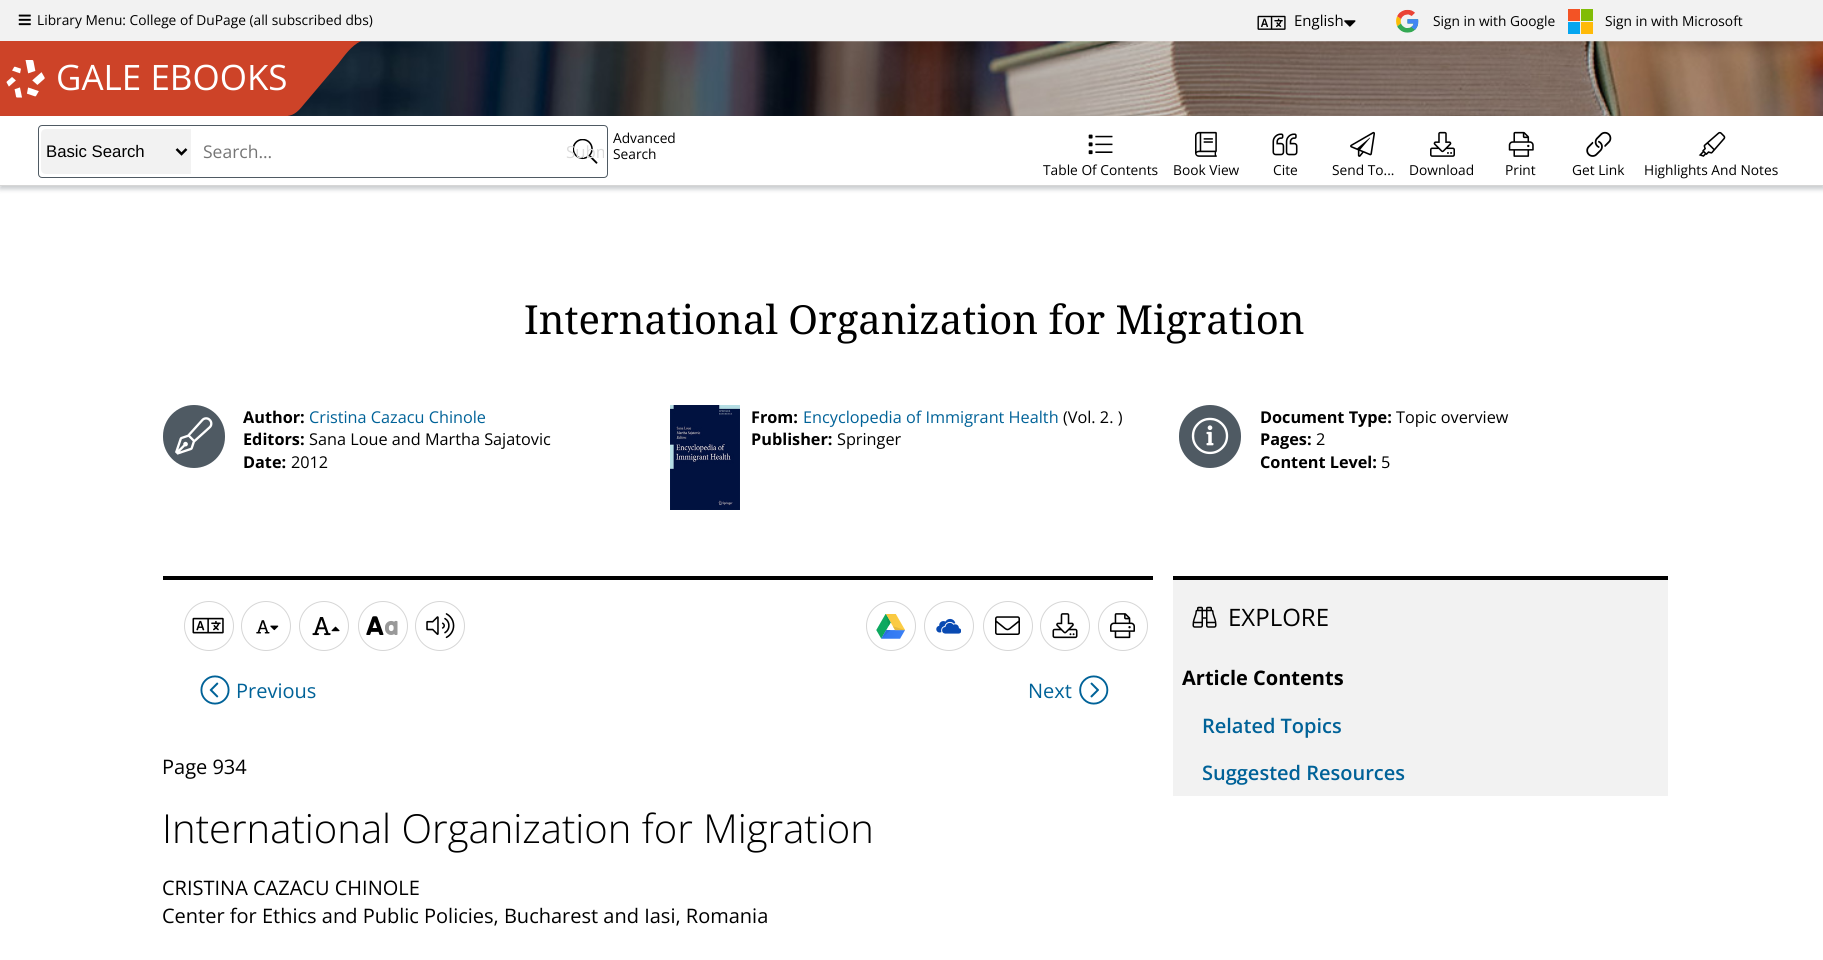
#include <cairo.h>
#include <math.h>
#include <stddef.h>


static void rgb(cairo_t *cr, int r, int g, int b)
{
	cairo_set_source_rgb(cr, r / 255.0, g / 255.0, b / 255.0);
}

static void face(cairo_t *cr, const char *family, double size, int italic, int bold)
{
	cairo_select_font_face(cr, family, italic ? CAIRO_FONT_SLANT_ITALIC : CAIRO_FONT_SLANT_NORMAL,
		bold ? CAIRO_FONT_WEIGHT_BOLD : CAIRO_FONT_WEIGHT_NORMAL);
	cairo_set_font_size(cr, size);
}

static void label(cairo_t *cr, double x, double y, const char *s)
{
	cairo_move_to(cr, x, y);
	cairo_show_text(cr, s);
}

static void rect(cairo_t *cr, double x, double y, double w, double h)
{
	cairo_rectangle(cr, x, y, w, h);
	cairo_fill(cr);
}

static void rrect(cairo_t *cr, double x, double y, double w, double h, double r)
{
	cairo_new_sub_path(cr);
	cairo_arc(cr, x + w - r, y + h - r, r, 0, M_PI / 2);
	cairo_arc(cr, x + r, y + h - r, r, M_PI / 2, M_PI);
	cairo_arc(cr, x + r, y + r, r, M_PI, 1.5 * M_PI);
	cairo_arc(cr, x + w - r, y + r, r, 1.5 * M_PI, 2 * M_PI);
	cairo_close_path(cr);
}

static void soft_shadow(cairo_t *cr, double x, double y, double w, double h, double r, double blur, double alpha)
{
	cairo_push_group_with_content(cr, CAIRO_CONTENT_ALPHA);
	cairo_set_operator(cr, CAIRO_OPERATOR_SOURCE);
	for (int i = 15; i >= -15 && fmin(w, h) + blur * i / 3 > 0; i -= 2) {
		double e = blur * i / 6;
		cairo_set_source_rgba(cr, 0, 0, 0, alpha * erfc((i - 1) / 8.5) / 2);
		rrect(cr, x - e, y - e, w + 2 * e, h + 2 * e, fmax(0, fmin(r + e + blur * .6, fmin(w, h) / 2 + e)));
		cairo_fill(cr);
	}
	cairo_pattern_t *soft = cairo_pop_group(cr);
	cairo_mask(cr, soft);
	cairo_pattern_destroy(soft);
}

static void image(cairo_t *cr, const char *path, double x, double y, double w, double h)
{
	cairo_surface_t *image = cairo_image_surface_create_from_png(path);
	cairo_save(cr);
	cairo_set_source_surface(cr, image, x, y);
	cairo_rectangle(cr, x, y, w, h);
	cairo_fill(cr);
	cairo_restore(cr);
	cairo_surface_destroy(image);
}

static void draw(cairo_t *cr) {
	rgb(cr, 255, 255, 255);
	cairo_paint(cr);
	rgb(cr, 242, 242, 242);
	rect(cr, 0, 0, 1823, 42);
	image(cr, "image0.png", 18, 14, 13, 12);
	face(cr, "Open Sans", 13.75, 0, 0);
	rgb(cr, 0, 0, 0);
	label(cr, 37, 25, "Library Menu: College of DuPage (all subscribed dbs)");
	image(cr, "image1.png", 1257, 15, 29, 15);
	face(cr, "Open Sans", 15, 0, 0);
	label(cr, 1294, 26, "English");
	image(cr, "image2.png", 1344, 20, 12, 7);
	image(cr, "image3.png", 1396, 9, 23, 24);
	face(cr, "Open Sans", 13.75, 0, 0);
	label(cr, 1433, 26, "Sign in with Google");
	rgb(cr, 243, 83, 37);
	rect(cr, 1568, 9, 12, 12);
	rgb(cr, 129, 188, 6);
	rect(cr, 1581, 9, 12, 12);
	rgb(cr, 5, 166, 240);
	rect(cr, 1568, 22, 12, 12);
	rgb(cr, 255, 186, 8);
	rect(cr, 1581, 22, 12, 12);
	rgb(cr, 0, 0, 0);
	label(cr, 1605, 26, "Sign in with Microsoft");
	image(cr, "image4.png", 288, 41, 1535, 75);
	rgb(cr, 205, 67, 40);
	cairo_new_path(cr);
	cairo_move_to(cr, 286, 41);
	cairo_line_to(cr, 361, 41);
	cairo_curve_to(cr, 351, 46, 345, 55, 338, 64);
	cairo_line_to(cr, 305, 103);
	cairo_curve_to(cr, 300, 109, 295, 116, 286, 116);
	cairo_close_path(cr);
	cairo_fill(cr);
	rect(cr, 0, 41, 288, 75);
	image(cr, "image5.png", 6, 60, 39, 38);
	face(cr, "Open Sans", 35, 0, 0);
	rgb(cr, 255, 255, 255);
	label(cr, 56, 90, "GALE EBOOKS");
	rgb(cr, 79, 90, 99);
	soft_shadow(cr, 0, 119, 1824, 70, 0, 2.5, 0.33);
	rgb(cr, 255, 255, 255);
	rect(cr, 0, 116, 1823, 69);
	rgb(cr, 214, 214, 214);
	rect(cr, 0, 185, 1823, 1);
	rrect(cr, 38.5, 125.5, 569, 52, 3.5);
	rgb(cr, 79, 90, 99);
	cairo_set_line_width(cr, 1);
	cairo_stroke(cr);
	rgb(cr, 242, 242, 242);
	cairo_new_path(cr);
	cairo_move_to(cr, 46, 129);
	cairo_line_to(cr, 191, 129);
	cairo_line_to(cr, 191, 174);
	cairo_line_to(cr, 46, 174);
	cairo_curve_to(cr, 43, 174, 41, 172, 41, 169);
	cairo_line_to(cr, 41, 134);
	cairo_curve_to(cr, 41, 131, 43, 129, 46, 129);
	cairo_close_path(cr);
	cairo_fill(cr);
	cairo_new_path(cr);
	cairo_move_to(cr, 176.5, 149);
	cairo_line_to(cr, 181.5, 154);
	cairo_line_to(cr, 186.5, 149);
	rgb(cr, 0, 0, 0);
	cairo_set_line_width(cr, 2.5);
	cairo_stroke(cr);
	face(cr, "Liberation Sans", 16.75, 0, 0);
	label(cr, 46, 157, "Basic Search");
	face(cr, "Open Sans", 17.5, 0, 0);
	rgb(cr, 117, 117, 117);
	label(cr, 203, 158, "Search...");
	image(cr, "image6.png", 573, 139, 25, 25);
	cairo_save(cr);
	rrect(cr, 566, 139, 38, 25, 5);
	cairo_clip(cr);
	face(cr, "Open Sans", 16.75, 0, 0);
	rgb(cr, 219, 219, 219);
	label(cr, 566, 158, "Subm");
	cairo_restore(cr);
	face(cr, "Open Sans", 13.75, 0, 0);
	rgb(cr, 0, 0, 0);
	label(cr, 613, 143, "Advanced");
	label(cr, 613, 159, "Search");
	image(cr, "image7.png", 1088, 134, 25, 21);
	label(cr, 1043, 175, "Table Of Contents");
	image(cr, "image8.png", 1195, 131, 22, 26);
	label(cr, 1173, 175, "Book View");
	image(cr, "image9.png", 1272, 133, 26, 23);
	label(cr, 1273, 175, "Cite");
	image(cr, "image10.png", 1350, 131, 25, 26);
	label(cr, 1332, 175, "Send To...");
	image(cr, "image11.png", 1430, 131, 25, 26);
	label(cr, 1409, 175, "Download");
	image(cr, "image12.png", 1508, 131, 26, 26);
	label(cr, 1505, 175, "Print");
	image(cr, "image13.png", 1586, 131, 26, 26);
	label(cr, 1572, 175, "Get Link");
	image(cr, "image14.png", 1698, 131, 28, 26);
	label(cr, 1644, 175, "Highlights And Notes");
	face(cr, "Noto Serif", 40, 0, 0);
	label(cr, 524, 334, "International Organization for Migration");
	rgb(cr, 79, 90, 99);
	rrect(cr, 163, 405, 62, 63, 31);
	cairo_fill(cr);
	image(cr, "image15.png", 175, 417, 38, 38);
	face(cr, "Open Sans", 16.25, 0, 1);
	rgb(cr, 0, 0, 0);
	label(cr, 243, 423, "Author:");
	face(cr, "Open Sans", 16.25, 0, 0);
	rgb(cr, 0, 98, 152);
	label(cr, 309, 423, "Cristina Cazacu Chinole");
	face(cr, "Open Sans", 16.25, 0, 1);
	rgb(cr, 0, 0, 0);
	label(cr, 243, 445, "Editors:");
	face(cr, "Open Sans", 16.25, 0, 0);
	label(cr, 309, 445, "Sana Loue and Martha Sajatovic");
	face(cr, "Open Sans", 16.25, 0, 1);
	label(cr, 243, 468, "Date:");
	face(cr, "Open Sans", 16.25, 0, 0);
	label(cr, 291, 468, "2012");
	image(cr, "image16.png", 670, 405, 70, 105);
	face(cr, "Open Sans", 16.25, 0, 1);
	label(cr, 751, 423, "From:");
	face(cr, "Open Sans", 16.25, 0, 0);
	rgb(cr, 0, 98, 152);
	label(cr, 803, 423, "Encyclopedia of Immigrant Health");
	rgb(cr, 0, 0, 0);
	label(cr, 1063, 423, "(Vol. 2. )");
	face(cr, "Open Sans", 16.25, 0, 1);
	label(cr, 751, 445, "Publisher:");
	face(cr, "Open Sans", 16.25, 0, 0);
	label(cr, 837, 445, "Springer");
	rgb(cr, 79, 90, 99);
	rrect(cr, 1179, 405, 62, 63, 31);
	cairo_fill(cr);
	image(cr, "image17.png", 1191, 417, 38, 38);
	face(cr, "Open Sans", 16.25, 0, 1);
	rgb(cr, 0, 0, 0);
	label(cr, 1260, 423, "Document Type:");
	face(cr, "Open Sans", 16.25, 0, 0);
	label(cr, 1396, 423, "Topic overview");
	face(cr, "Open Sans", 16.25, 0, 1);
	label(cr, 1260, 445, "Pages:");
	face(cr, "Open Sans", 16.25, 0, 0);
	label(cr, 1316, 445, "2");
	face(cr, "Open Sans", 16.25, 0, 1);
	label(cr, 1260, 468, "Content Level:");
	face(cr, "Open Sans", 16.25, 0, 0);
	label(cr, 1381, 468, "5");
	rect(cr, 163, 576, 990, 4);
	cairo_new_path(cr);
	cairo_arc(cr, 209, 626, 24.5, 0, 2 * M_PI);
	rgb(cr, 214, 214, 214);
	cairo_set_line_width(cr, 1);
	cairo_stroke(cr);
	image(cr, "image18.png", 192, 617, 32, 17);
	cairo_arc(cr, 266, 626, 24.5, 0, 2 * M_PI);
	cairo_stroke(cr);
	image(cr, "image19.png", 256, 620, 14, 14);
	image(cr, "image20.png", 270, 625, 9, 6);
	cairo_arc(cr, 324, 626, 24.5, 0, 2 * M_PI);
	cairo_stroke(cr);
	image(cr, "image21.png", 312, 617, 19, 19);
	image(cr, "image22.png", 331, 626, 9, 6);
	cairo_arc(cr, 383, 626, 24.5, 0, 2 * M_PI);
	cairo_stroke(cr);
	image(cr, "image23.png", 366, 616, 18, 19);
	image(cr, "image24.png", 385, 620, 13, 15);
	cairo_arc(cr, 440, 626, 24.5, 0, 2 * M_PI);
	cairo_stroke(cr);
	image(cr, "image25.png", 426, 613, 29, 26);
	cairo_arc(cr, 891, 626, 24.5, 0, 2 * M_PI);
	cairo_stroke(cr);
	image(cr, "image26.png", 876, 614, 29, 25);
	cairo_arc(cr, 949, 626, 24.5, 0, 2 * M_PI);
	cairo_stroke(cr);
	image(cr, "image27.png", 936, 618, 25, 16);
	cairo_arc(cr, 1008, 626, 24.5, 0, 2 * M_PI);
	cairo_stroke(cr);
	image(cr, "image28.png", 995, 616, 25, 19);
	cairo_arc(cr, 1065, 626, 24.5, 0, 2 * M_PI);
	cairo_stroke(cr);
	image(cr, "image29.png", 1052, 613, 26, 26);
	cairo_arc(cr, 1123, 626, 24.5, 0, 2 * M_PI);
	cairo_stroke(cr);
	image(cr, "image30.png", 1110, 613, 25, 26);
	image(cr, "image31.png", 200, 675, 30, 30);
	face(cr, "Open Sans", 20, 0, 0);
	rgb(cr, 0, 98, 152);
	label(cr, 236, 698, "Previous");
	label(cr, 1028, 698, "Next");
	image(cr, "image32.png", 1079, 675, 30, 30);
	rgb(cr, 0, 0, 0);
	label(cr, 162, 774, "Page 934");
	face(cr, "Open Sans Light", 40, 0, 0);
	label(cr, 162, 843, "International Organization for Migration");
	face(cr, "Open Sans", 20, 0, 0);
	label(cr, 162, 895, "CRISTINA CAZACU CHINOLE");
	label(cr, 162, 923, "Center for Ethics and Public Policies, Bucharest and Iasi, Romania");
	rect(cr, 1173, 576, 495, 4);
	rgb(cr, 242, 242, 242);
	rect(cr, 1173, 580, 495, 216);
	image(cr, "image33.png", 1192, 606, 25, 22);
	face(cr, "Open Sans", 24, 0, 0);
	rgb(cr, 0, 0, 0);
	label(cr, 1228, 626, "EXPLORE");
	face(cr, "Open Sans", 20, 0, 1);
	label(cr, 1182, 685, "Article Contents");
	face(cr, "Open Sans SemiBold", 20, 0, 0);
	rgb(cr, 0, 98, 152);
	label(cr, 1202, 733, "Related Topics");
	label(cr, 1202, 780, "Suggested Resources");
}

int main(void) {
	cairo_surface_t *surface = cairo_image_surface_create(CAIRO_FORMAT_RGB24, 1823, 960);
	cairo_t *cr = cairo_create(surface);
	cairo_font_options_t *options = cairo_font_options_create();
	cairo_font_options_set_hint_metrics(options, CAIRO_HINT_METRICS_OFF);
	cairo_font_options_set_hint_style(options, CAIRO_HINT_STYLE_NONE);
	cairo_set_font_options(cr, options);
	cairo_set_miter_limit(cr, 4);
	draw(cr);
	cairo_surface_write_to_png(surface, "render.png");
	cairo_font_options_destroy(options);
	cairo_destroy(cr);
	cairo_surface_destroy(surface);
	return 0;
}
